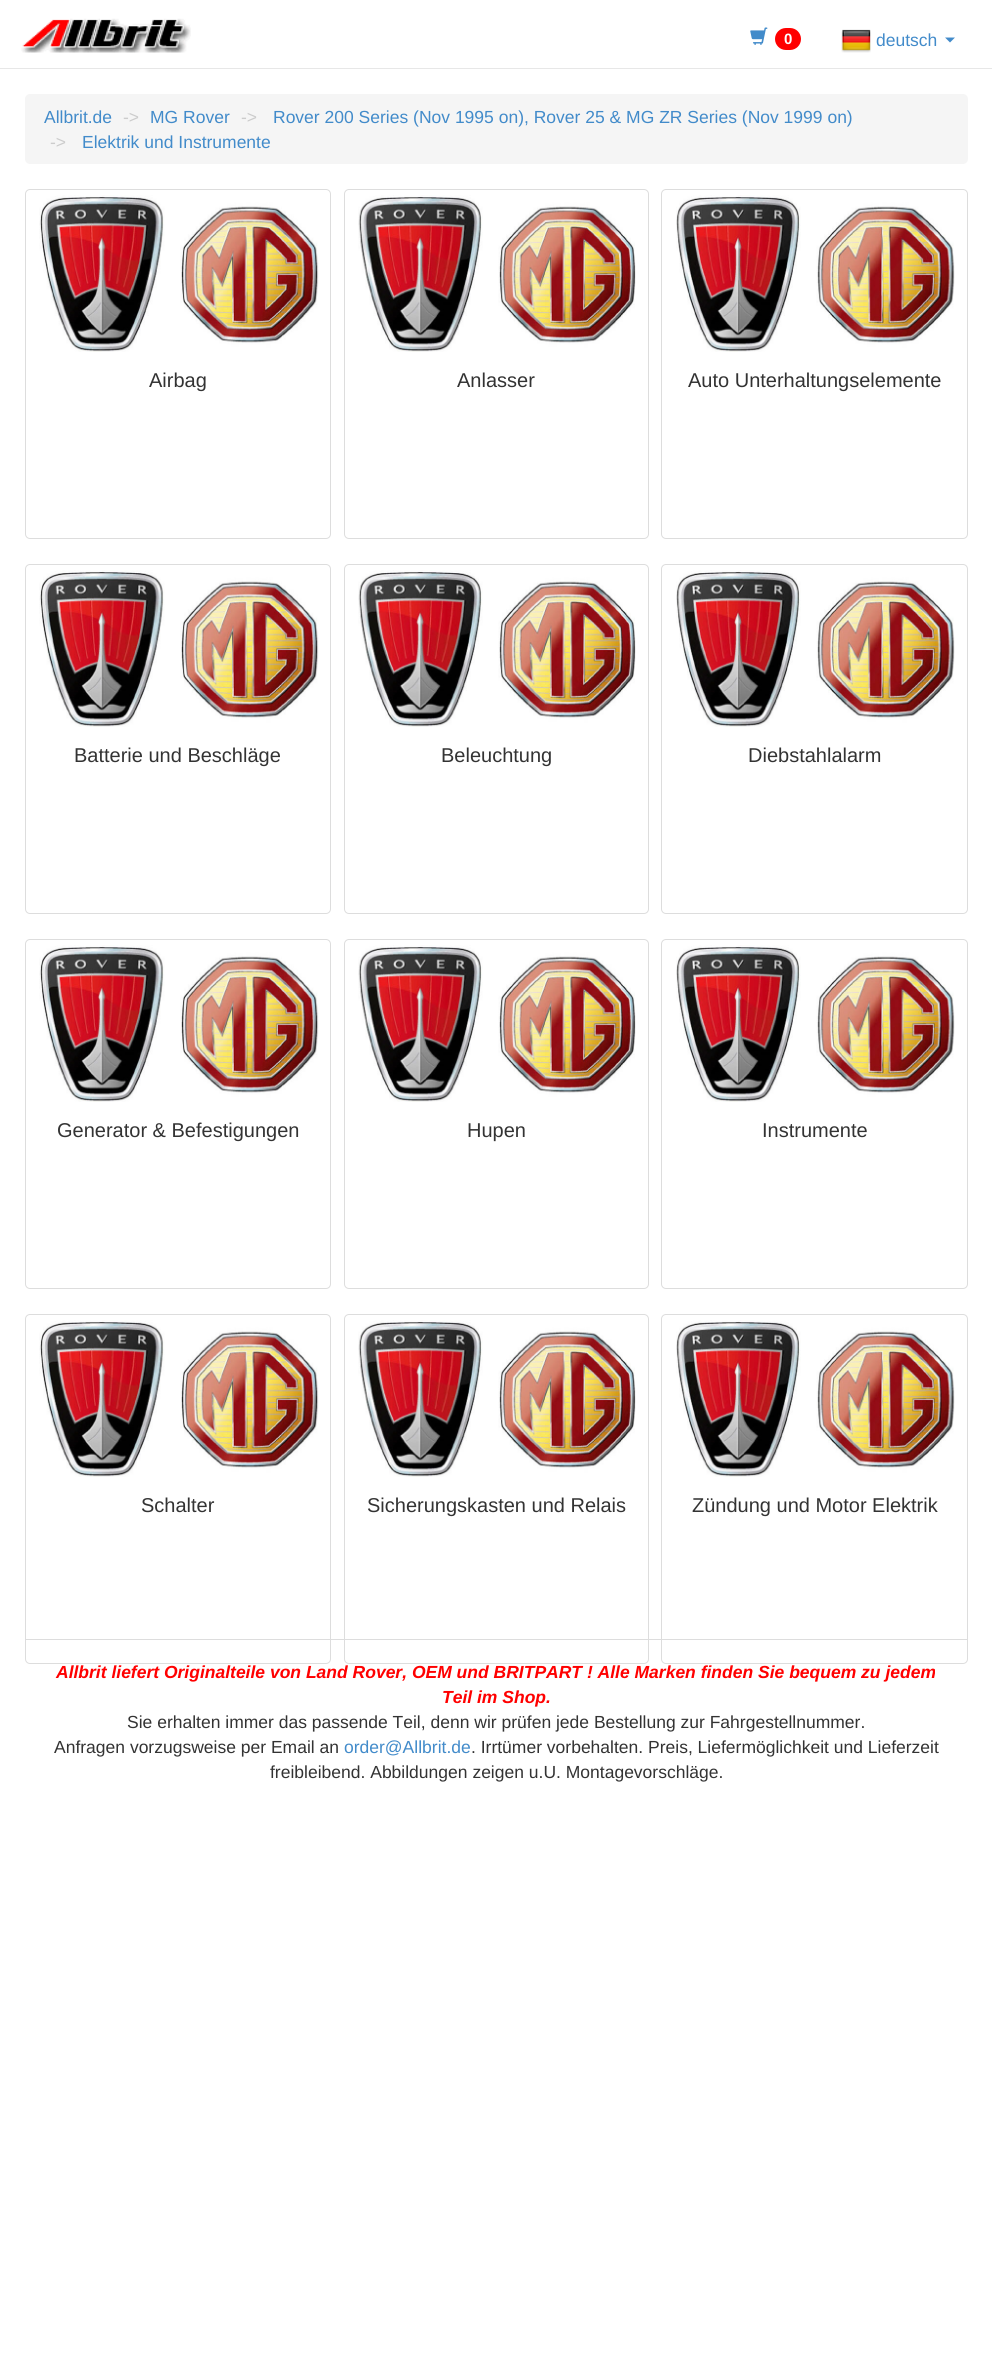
#include <cairo.h>
#include <math.h>
#include <stddef.h>


static void rgb(cairo_t *cr, int r, int g, int b)
{
	cairo_set_source_rgb(cr, r / 255.0, g / 255.0, b / 255.0);
}

static void face(cairo_t *cr, const char *family, double size, int italic, int bold)
{
	cairo_select_font_face(cr, family, italic ? CAIRO_FONT_SLANT_ITALIC : CAIRO_FONT_SLANT_NORMAL,
		bold ? CAIRO_FONT_WEIGHT_BOLD : CAIRO_FONT_WEIGHT_NORMAL);
	cairo_set_font_size(cr, size);
}

static void label(cairo_t *cr, double x, double y, const char *s)
{
	cairo_move_to(cr, x, y);
	cairo_show_text(cr, s);
}

static void rect(cairo_t *cr, double x, double y, double w, double h)
{
	cairo_rectangle(cr, x, y, w, h);
	cairo_fill(cr);
}

static void rrect(cairo_t *cr, double x, double y, double w, double h, double r)
{
	cairo_new_sub_path(cr);
	cairo_arc(cr, x + w - r, y + h - r, r, 0, M_PI / 2);
	cairo_arc(cr, x + r, y + h - r, r, M_PI / 2, M_PI);
	cairo_arc(cr, x + r, y + r, r, M_PI, 1.5 * M_PI);
	cairo_arc(cr, x + w - r, y + r, r, 1.5 * M_PI, 2 * M_PI);
	cairo_close_path(cr);
}

static void image(cairo_t *cr, const char *path, double x, double y, double w, double h)
{
	cairo_surface_t *image = cairo_image_surface_create_from_png(path);
	cairo_save(cr);
	cairo_set_source_surface(cr, image, x, y);
	cairo_rectangle(cr, x, y, w, h);
	cairo_fill(cr);
	cairo_restore(cr);
	cairo_surface_destroy(image);
}

static void draw(cairo_t *cr) {
	rgb(cr, 255, 255, 255);
	cairo_paint(cr);
	rgb(cr, 231, 231, 231);
	rect(cr, 0, 68, 992, 1);
	image(cr, "image0.png", 21, 18, 170, 35);
	image(cr, "image1.png", 750, 27, 18, 18);
	rgb(cr, 255, 0, 0);
	rrect(cr, 775, 28, 26, 22, 11);
	cairo_fill(cr);
	face(cr, "Liberation Sans", 15, 0, 1);
	rgb(cr, 255, 255, 255);
	label(cr, 784, 44, "0");
	image(cr, "image2.png", 841, 29, 30, 24);
	face(cr, "Liberation Sans", 17.5, 0, 0);
	rgb(cr, 66, 139, 202);
	label(cr, 876, 46, "deutsch");
	cairo_new_path(cr);
	cairo_move_to(cr, 945, 37.5);
	cairo_line_to(cr, 955, 37.5);
	cairo_line_to(cr, 950, 42.5);
	cairo_close_path(cr);
	cairo_fill(cr);
	rgb(cr, 245, 245, 245);
	rrect(cr, 25, 94, 943, 70, 5);
	cairo_fill(cr);
	rgb(cr, 66, 139, 202);
	label(cr, 44, 123, "Allbrit.de");
	rgb(cr, 204, 204, 204);
	label(cr, 123, 123, "->");
	rgb(cr, 66, 139, 202);
	label(cr, 150, 123, "MG Rover");
	rgb(cr, 204, 204, 204);
	label(cr, 241, 123, "->");
	rgb(cr, 66, 139, 202);
	label(cr, 273, 123, "Rover 200 Series (Nov 1995 on), Rover 25 & MG ZR Series (Nov 1999 on)");
	rgb(cr, 204, 204, 204);
	label(cr, 50, 148, "->");
	rgb(cr, 66, 139, 202);
	label(cr, 82, 148, "Elektrik und Instrumente");
	rrect(cr, 25.5, 189.5, 305, 349, 4.5);
	rgb(cr, 221, 221, 221);
	cairo_set_line_width(cr, 1);
	cairo_stroke(cr);
	image(cr, "image3.png", 39, 195, 280, 157);
	face(cr, "Liberation Sans", 20, 0, 0);
	rgb(cr, 51, 51, 51);
	label(cr, 149, 387, "Airbag");
	rrect(cr, 344.5, 189.5, 304, 349, 4.5);
	rgb(cr, 221, 221, 221);
	cairo_stroke(cr);
	image(cr, "image4.png", 358, 195, 278, 157);
	rgb(cr, 51, 51, 51);
	label(cr, 457, 387, "Anlasser");
	rrect(cr, 661.5, 189.5, 306, 349, 4.5);
	rgb(cr, 221, 221, 221);
	cairo_stroke(cr);
	image(cr, "image5.png", 676, 195, 279, 157);
	rgb(cr, 51, 51, 51);
	label(cr, 688, 387, "Auto Unterhaltungselemente");
	rrect(cr, 25.5, 564.5, 305, 349, 4.5);
	rgb(cr, 221, 221, 221);
	cairo_stroke(cr);
	image(cr, "image6.png", 39, 570, 280, 157);
	rgb(cr, 51, 51, 51);
	label(cr, 74, 762, "Batterie und Beschläge");
	rrect(cr, 344.5, 564.5, 304, 349, 4.5);
	rgb(cr, 221, 221, 221);
	cairo_stroke(cr);
	image(cr, "image7.png", 358, 570, 278, 157);
	rgb(cr, 51, 51, 51);
	label(cr, 441, 762, "Beleuchtung");
	rrect(cr, 661.5, 564.5, 306, 349, 4.5);
	rgb(cr, 221, 221, 221);
	cairo_stroke(cr);
	image(cr, "image8.png", 676, 570, 279, 157);
	rgb(cr, 51, 51, 51);
	label(cr, 748, 762, "Diebstahlalarm");
	rrect(cr, 25.5, 939.5, 305, 349, 4.5);
	rgb(cr, 221, 221, 221);
	cairo_stroke(cr);
	image(cr, "image3.png", 39, 945, 280, 157);
	rgb(cr, 51, 51, 51);
	label(cr, 57, 1137, "Generator & Befestigungen");
	rrect(cr, 344.5, 939.5, 304, 349, 4.5);
	rgb(cr, 221, 221, 221);
	cairo_stroke(cr);
	image(cr, "image4.png", 358, 945, 278, 157);
	rgb(cr, 51, 51, 51);
	label(cr, 467, 1137, "Hupen");
	rrect(cr, 661.5, 939.5, 306, 349, 4.5);
	rgb(cr, 221, 221, 221);
	cairo_stroke(cr);
	image(cr, "image5.png", 676, 945, 279, 157);
	rgb(cr, 51, 51, 51);
	label(cr, 762, 1137, "Instrumente");
	rrect(cr, 25.5, 1314.5, 305, 349, 4.5);
	rgb(cr, 221, 221, 221);
	cairo_stroke(cr);
	image(cr, "image3.png", 39, 1320, 280, 157);
	rgb(cr, 51, 51, 51);
	label(cr, 141, 1512, "Schalter");
	rrect(cr, 344.5, 1314.5, 304, 349, 4.5);
	rgb(cr, 221, 221, 221);
	cairo_stroke(cr);
	image(cr, "image4.png", 358, 1320, 278, 157);
	rgb(cr, 51, 51, 51);
	label(cr, 367, 1512, "Sicherungskasten und Relais");
	rrect(cr, 661.5, 1314.5, 306, 349, 4.5);
	rgb(cr, 221, 221, 221);
	cairo_stroke(cr);
	image(cr, "image5.png", 676, 1320, 279, 157);
	rgb(cr, 51, 51, 51);
	label(cr, 692, 1512, "Zündung und Motor Elektrik");
	rgb(cr, 221, 221, 221);
	rect(cr, 25, 1639, 943, 1);
	face(cr, "Liberation Sans", 17.5, 1, 1);
	rgb(cr, 255, 0, 0);
	label(cr, 56, 1678, "Allbrit liefert Originalteile von Land Rover, OEM und BRITPART ! Alle Marken finden Sie bequem zu jedem");
	label(cr, 442, 1703, "Teil im Shop.");
	face(cr, "Liberation Sans", 17.5, 0, 0);
	rgb(cr, 51, 51, 51);
	label(cr, 127, 1728, "Sie erhalten immer das passende Teil, denn wir prüfen jede Bestellung zur Fahrgestellnummer.");
	label(cr, 54, 1753, "Anfragen vorzugsweise per Email an");
	rgb(cr, 66, 139, 202);
	label(cr, 344, 1753, "order@Allbrit.de");
	rgb(cr, 51, 51, 51);
	label(cr, 471, 1753, ". Irrtümer vorbehalten. Preis, Liefermöglichkeit und Lieferzeit");
	label(cr, 270, 1778, "freibleibend. Abbildungen zeigen u.U. Montagevorschläge.");
}

int main(void) {
	cairo_surface_t *surface = cairo_image_surface_create(CAIRO_FORMAT_RGB24, 992, 2368);
	cairo_t *cr = cairo_create(surface);
	cairo_font_options_t *options = cairo_font_options_create();
	cairo_font_options_set_hint_metrics(options, CAIRO_HINT_METRICS_OFF);
	cairo_font_options_set_hint_style(options, CAIRO_HINT_STYLE_NONE);
	cairo_set_font_options(cr, options);
	cairo_set_miter_limit(cr, 4);
	draw(cr);
	cairo_surface_write_to_png(surface, "render.png");
	cairo_font_options_destroy(options);
	cairo_destroy(cr);
	cairo_surface_destroy(surface);
	return 0;
}
